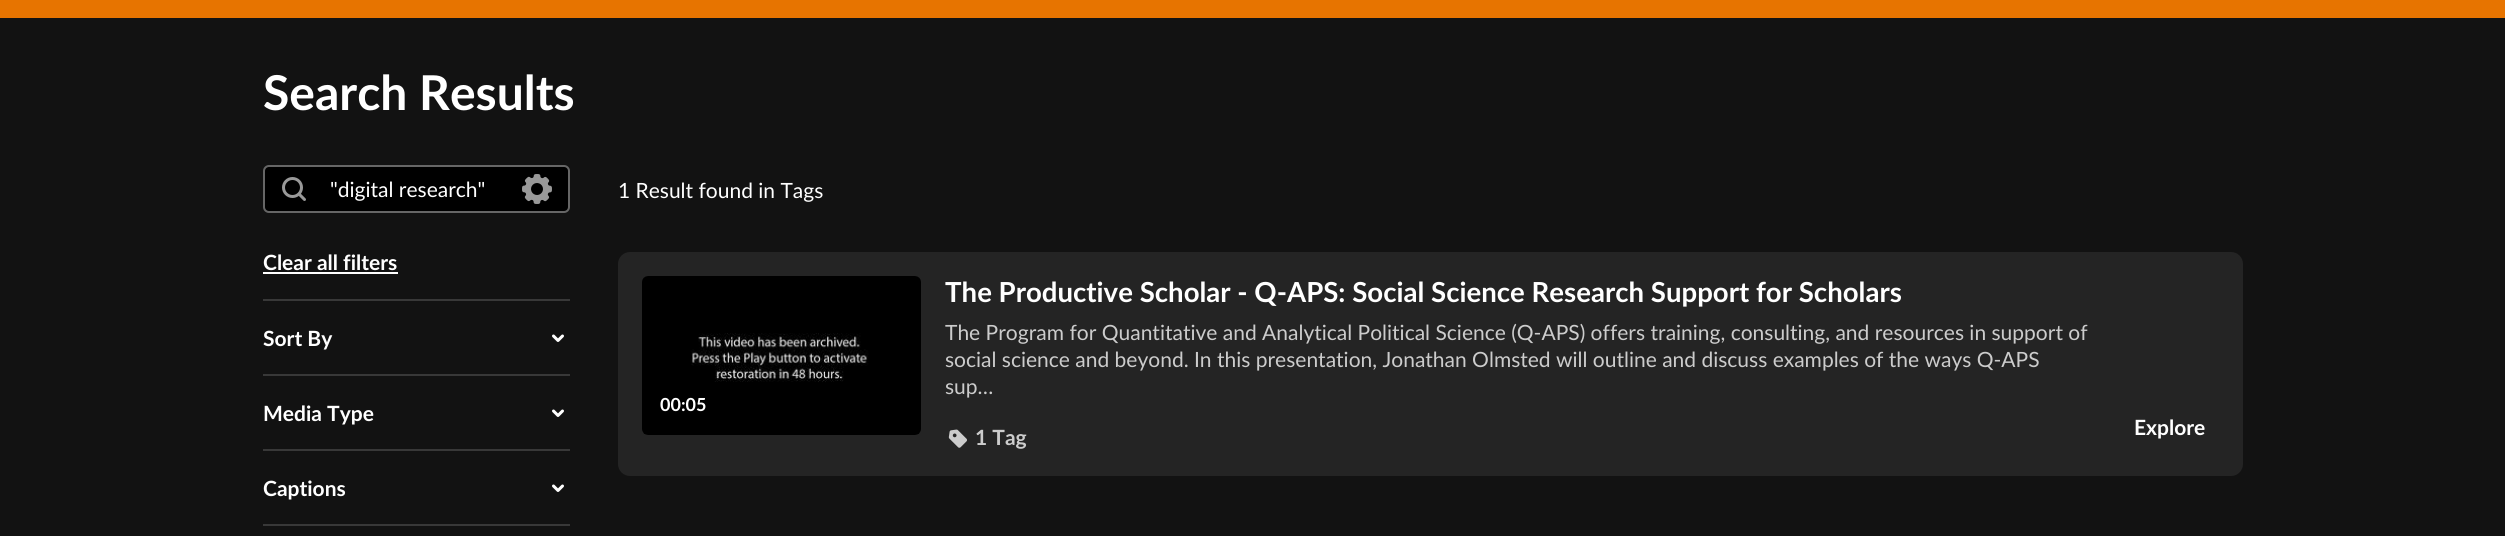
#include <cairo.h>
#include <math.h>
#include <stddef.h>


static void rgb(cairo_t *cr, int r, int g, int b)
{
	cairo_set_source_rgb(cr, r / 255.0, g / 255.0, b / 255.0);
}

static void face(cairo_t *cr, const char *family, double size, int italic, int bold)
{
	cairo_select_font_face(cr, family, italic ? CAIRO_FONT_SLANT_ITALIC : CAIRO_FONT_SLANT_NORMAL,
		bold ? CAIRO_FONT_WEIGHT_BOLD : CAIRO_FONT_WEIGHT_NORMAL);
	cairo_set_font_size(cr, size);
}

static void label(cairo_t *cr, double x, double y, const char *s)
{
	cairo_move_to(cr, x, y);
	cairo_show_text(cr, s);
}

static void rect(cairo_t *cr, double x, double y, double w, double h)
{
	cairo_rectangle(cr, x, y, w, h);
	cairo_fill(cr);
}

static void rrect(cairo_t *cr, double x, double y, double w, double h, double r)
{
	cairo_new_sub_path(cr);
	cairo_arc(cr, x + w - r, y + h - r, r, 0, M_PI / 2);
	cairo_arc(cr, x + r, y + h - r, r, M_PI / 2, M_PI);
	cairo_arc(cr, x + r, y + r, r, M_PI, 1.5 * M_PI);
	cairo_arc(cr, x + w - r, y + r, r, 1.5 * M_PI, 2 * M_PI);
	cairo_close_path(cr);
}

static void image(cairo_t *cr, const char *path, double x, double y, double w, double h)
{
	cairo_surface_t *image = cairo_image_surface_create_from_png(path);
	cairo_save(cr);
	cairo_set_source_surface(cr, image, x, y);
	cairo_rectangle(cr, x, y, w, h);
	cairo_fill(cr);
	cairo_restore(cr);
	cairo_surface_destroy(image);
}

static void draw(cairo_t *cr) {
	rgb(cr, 18, 18, 18);
	cairo_paint(cr);
	rgb(cr, 231, 116, 0);
	rect(cr, 0, 0, 2505, 18);
	face(cr, "Lato", 48, 0, 1);
	rgb(cr, 255, 255, 255);
	label(cr, 263, 110, "Search Results");
	rgb(cr, 0, 0, 0);
	rrect(cr, 264, 166, 305, 46, 5);
	cairo_fill_preserve(cr);
	rgb(cr, 102, 102, 102);
	cairo_stroke(cr);
	image(cr, "image0.png", 282, 177, 24, 24);
	face(cr, "Lato", 21, 0, 0);
	rgb(cr, 255, 255, 255);
	label(cr, 330, 197, "\"digital research\"");
	image(cr, "image1.png", 522, 174, 30, 30);
	face(cr, "Lato", 21, 0, 1);
	label(cr, 263, 270, "Clear all filters");
	rect(cr, 263, 272, 135, 2);
	rgb(cr, 56, 56, 56);
	rect(cr, 263, 299, 307, 2);
	rgb(cr, 255, 255, 255);
	label(cr, 263, 346, "Sort By");
	image(cr, "image2.png", 552, 334, 12, 8);
	rgb(cr, 56, 56, 56);
	rect(cr, 263, 374, 307, 2);
	rgb(cr, 255, 255, 255);
	label(cr, 263, 421, "Media Type");
	image(cr, "image2.png", 552, 409, 12, 8);
	rgb(cr, 56, 56, 56);
	rect(cr, 263, 449, 307, 2);
	rgb(cr, 255, 255, 255);
	label(cr, 263, 496, "Captions");
	image(cr, "image2.png", 552, 484, 12, 8);
	rgb(cr, 56, 56, 56);
	rect(cr, 263, 524, 307, 2);
	face(cr, "Lato", 21, 0, 0);
	rgb(cr, 255, 255, 255);
	label(cr, 618, 198, "1 Result found in Tags");
	rgb(cr, 36, 36, 36);
	rrect(cr, 618, 252, 1625, 224, 12);
	cairo_fill(cr);
	image(cr, "image3.png", 642, 276, 279, 159);
	face(cr, "Lato", 18, 0, 1);
	rgb(cr, 255, 255, 255);
	label(cr, 660, 411, "00:05");
	face(cr, "Lato", 27.6, 0, 1);
	label(cr, 945, 302, "The Productive Scholar - Q-APS: Social Science Research Support for Scholars");
	face(cr, "Lato", 21, 0, 0);
	rgb(cr, 204, 204, 204);
	label(cr, 945, 340, "The Program for Quantitative and Analytical Political Science (Q-APS) offers training, consulting, and resources in support of");
	label(cr, 945, 367, "social science and beyond. In this presentation, Jonathan Olmsted will outline and discuss examples of the ways Q-APS");
	label(cr, 945, 394, "sup…");
	image(cr, "image4.png", 948, 429, 19, 19);
	face(cr, "Lato", 21, 0, 1);
	label(cr, 975, 445, "1 Tag");
	rgb(cr, 255, 255, 255);
	label(cr, 2134, 435, "Explore");
}

int main(void) {
	cairo_surface_t *surface = cairo_image_surface_create(CAIRO_FORMAT_RGB24, 2505, 536);
	cairo_t *cr = cairo_create(surface);
	cairo_font_options_t *options = cairo_font_options_create();
	cairo_font_options_set_hint_metrics(options, CAIRO_HINT_METRICS_OFF);
	cairo_font_options_set_hint_style(options, CAIRO_HINT_STYLE_NONE);
	cairo_set_font_options(cr, options);
	cairo_set_miter_limit(cr, 4);
	draw(cr);
	cairo_surface_write_to_png(surface, "render.png");
	cairo_font_options_destroy(options);
	cairo_destroy(cr);
	cairo_surface_destroy(surface);
	return 0;
}
